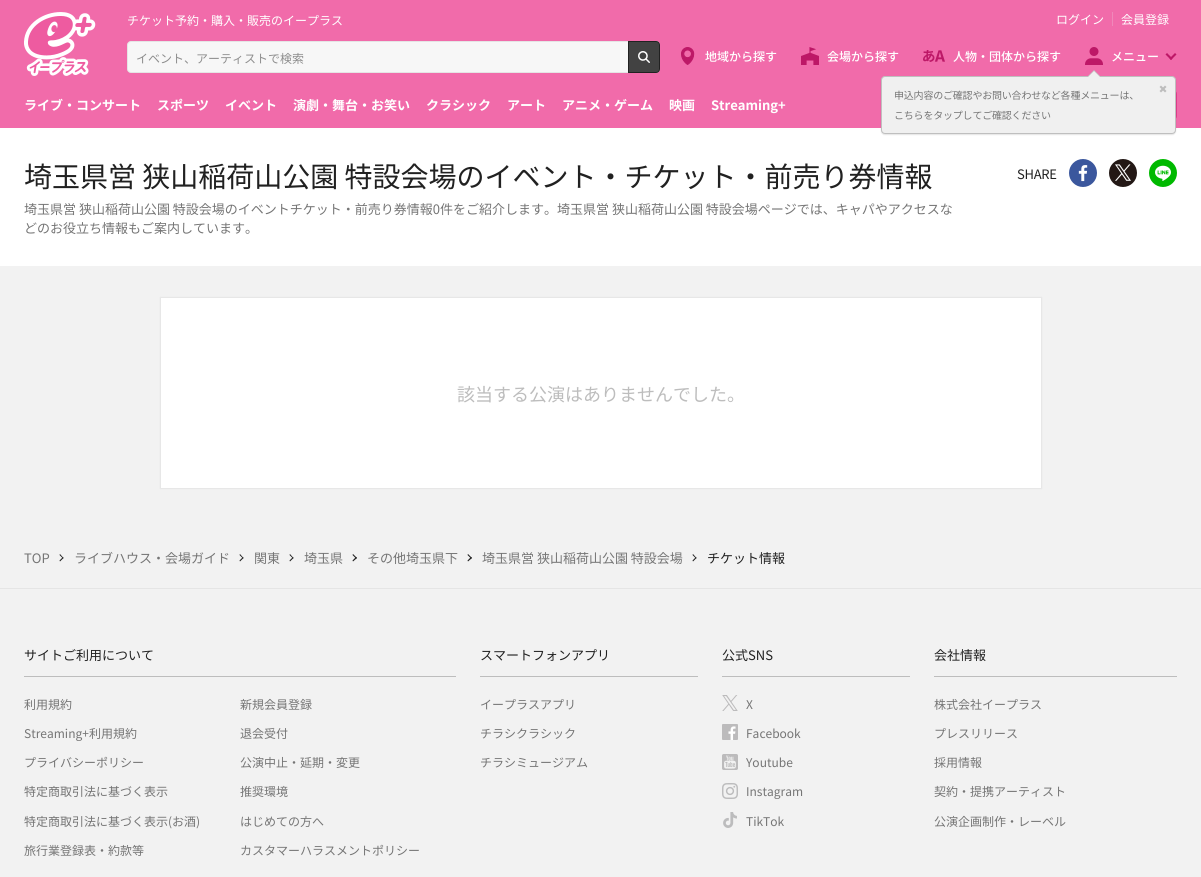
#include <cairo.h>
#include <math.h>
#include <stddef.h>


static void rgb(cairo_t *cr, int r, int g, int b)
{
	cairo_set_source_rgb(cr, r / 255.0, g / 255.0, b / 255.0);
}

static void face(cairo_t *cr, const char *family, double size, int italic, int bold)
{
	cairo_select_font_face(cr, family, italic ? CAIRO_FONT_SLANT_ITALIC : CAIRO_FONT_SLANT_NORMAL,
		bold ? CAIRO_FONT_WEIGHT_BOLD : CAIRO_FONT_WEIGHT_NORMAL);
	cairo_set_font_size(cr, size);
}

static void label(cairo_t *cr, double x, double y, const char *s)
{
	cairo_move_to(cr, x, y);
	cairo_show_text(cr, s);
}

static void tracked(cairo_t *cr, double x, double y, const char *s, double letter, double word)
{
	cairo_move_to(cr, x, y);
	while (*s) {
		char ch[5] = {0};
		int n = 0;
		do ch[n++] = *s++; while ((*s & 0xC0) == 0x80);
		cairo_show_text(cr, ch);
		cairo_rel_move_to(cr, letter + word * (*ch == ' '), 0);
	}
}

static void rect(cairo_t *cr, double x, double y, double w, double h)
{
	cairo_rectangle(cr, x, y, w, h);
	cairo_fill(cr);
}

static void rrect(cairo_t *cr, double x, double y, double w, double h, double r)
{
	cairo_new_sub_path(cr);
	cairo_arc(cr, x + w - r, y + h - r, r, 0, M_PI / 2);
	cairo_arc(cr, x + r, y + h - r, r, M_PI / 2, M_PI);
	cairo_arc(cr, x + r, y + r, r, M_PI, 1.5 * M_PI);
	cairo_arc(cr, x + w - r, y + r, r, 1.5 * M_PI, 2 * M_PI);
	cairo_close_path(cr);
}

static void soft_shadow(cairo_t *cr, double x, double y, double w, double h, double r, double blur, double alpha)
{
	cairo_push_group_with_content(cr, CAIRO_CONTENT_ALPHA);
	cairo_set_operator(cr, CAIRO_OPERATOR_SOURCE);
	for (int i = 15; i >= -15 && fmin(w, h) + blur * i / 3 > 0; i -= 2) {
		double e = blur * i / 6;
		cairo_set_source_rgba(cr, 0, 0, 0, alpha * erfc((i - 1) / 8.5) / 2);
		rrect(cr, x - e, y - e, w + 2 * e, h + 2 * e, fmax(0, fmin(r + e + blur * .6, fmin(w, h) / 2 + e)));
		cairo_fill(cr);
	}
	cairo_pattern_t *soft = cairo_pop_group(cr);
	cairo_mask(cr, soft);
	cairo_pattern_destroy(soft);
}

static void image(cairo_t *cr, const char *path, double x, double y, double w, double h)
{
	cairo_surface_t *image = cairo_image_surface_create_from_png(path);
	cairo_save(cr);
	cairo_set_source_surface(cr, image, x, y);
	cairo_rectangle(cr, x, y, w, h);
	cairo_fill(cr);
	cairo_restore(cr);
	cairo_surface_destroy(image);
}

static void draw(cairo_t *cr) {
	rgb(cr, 242, 242, 242);
	cairo_paint(cr);
	rgb(cr, 241, 107, 170);
	rect(cr, 0, 0, 1201, 128);
	image(cr, "image0.png", 24, 12, 72, 64);
	face(cr, "Noto Sans JP", 12, 0, 0);
	rgb(cr, 255, 255, 255);
	label(cr, 127, 25, "チケット予約・購入・販売のイープラス");
	label(cr, 1056, 24, "ログイン");
	rgb(cr, 240, 136, 186);
	rect(cr, 1112, 12, 1, 14);
	rgb(cr, 255, 255, 255);
	label(cr, 1121, 24, "会員登録");
	rgb(cr, 247, 247, 247);
	rrect(cr, 127.5, 41.5, 532, 31, 3.5);
	cairo_fill_preserve(cr);
	rgb(cr, 229, 229, 229);
	cairo_set_line_width(cr, 1);
	cairo_stroke(cr);
	rgb(cr, 142, 142, 142);
	label(cr, 136, 63, "イベント、アーティストで検索");
	rgb(cr, 66, 66, 66);
	cairo_new_path(cr);
	cairo_move_to(cr, 628.5, 41.5);
	cairo_line_to(cr, 656, 41.5);
	cairo_curve_to(cr, 658, 41.5, 659.5, 43, 659.5, 45);
	cairo_line_to(cr, 659.5, 69);
	cairo_curve_to(cr, 659.5, 71, 658, 72.5, 656, 72.5);
	cairo_line_to(cr, 628.5, 72.5);
	cairo_close_path(cr);
	cairo_fill_preserve(cr);
	rgb(cr, 33, 33, 33);
	cairo_stroke(cr);
	image(cr, "image1.png", 638, 51, 12, 12);
	image(cr, "image2.png", 681, 47, 14, 18);
	face(cr, "Noto Sans JP Medium", 12, 0, 0);
	rgb(cr, 255, 255, 255);
	label(cr, 705, 61, "地域から探す");
	image(cr, "image3.png", 801, 47, 18, 18);
	label(cr, 827, 61, "会場から探す");
	image(cr, "image4.png", 923, 50, 22, 12);
	label(cr, 953, 61, "人物・団体から探す");
	image(cr, "image5.png", 1085, 47, 18, 18);
	label(cr, 1111, 61, "メニュー");
	rgb(cr, 189, 24, 103);
	cairo_new_path(cr);
	cairo_move_to(cr, 1176.5, 54.5);
	cairo_line_to(cr, 1171, 60);
	cairo_line_to(cr, 1169.5, 58.5);
	cairo_line_to(cr, 1175, 53);
	cairo_close_path(cr);
	cairo_fill(cr);
	cairo_new_path(cr);
	cairo_move_to(cr, 1172.5, 58.5);
	cairo_line_to(cr, 1171, 60);
	cairo_line_to(cr, 1165.5, 54.5);
	cairo_line_to(cr, 1167, 53);
	cairo_close_path(cr);
	cairo_fill(cr);
	face(cr, "Noto Sans JP", 13, 0, 1);
	rgb(cr, 255, 255, 255);
	label(cr, 24, 110, "ライブ・コンサート");
	label(cr, 157, 110, "スポーツ");
	label(cr, 225, 110, "イベント");
	label(cr, 293, 110, "演劇・舞台・お笑い");
	label(cr, 426, 110, "クラシック");
	label(cr, 507, 110, "アート");
	label(cr, 562, 110, "アニメ・ゲーム");
	label(cr, 669, 110, "映画");
	label(cr, 711, 110, "Streaming+");
	rrect(cr, 1016.5, 90.5, 160, 29, 3.5);
	rgb(cr, 224, 61, 140);
	cairo_stroke(cr);
	rgb(cr, 255, 255, 255);
	rect(cr, 0, 128, 1201, 138);
	rgb(cr, 0, 0, 0);
	soft_shadow(cr, 881, 77, 295, 58, 4, 0.5, 0.1);
	rgb(cr, 240, 240, 240);
	rrect(cr, 881.5, 76.5, 294, 57, 3.5);
	cairo_fill_preserve(cr);
	rgb(cr, 191, 191, 191);
	cairo_stroke(cr);
	cairo_new_path(cr);
	cairo_move_to(cr, 1101, 77);
	cairo_line_to(cr, 1087, 77);
	cairo_line_to(cr, 1094, 70);
	cairo_close_path(cr);
	cairo_fill(cr);
	rgb(cr, 240, 240, 240);
	cairo_new_path(cr);
	cairo_move_to(cr, 1100, 77);
	cairo_line_to(cr, 1088, 77);
	cairo_line_to(cr, 1094, 71);
	cairo_close_path(cr);
	cairo_fill(cr);
	rgb(cr, 189, 189, 189);
	cairo_new_path(cr);
	cairo_move_to(cr, 1159.5, 87);
	cairo_line_to(cr, 1161, 85.5);
	cairo_line_to(cr, 1166.5, 91);
	cairo_line_to(cr, 1165, 92.5);
	cairo_close_path(cr);
	cairo_fill(cr);
	cairo_new_path(cr);
	cairo_move_to(cr, 1165, 85.5);
	cairo_line_to(cr, 1166.5, 87);
	cairo_line_to(cr, 1161, 92.5);
	cairo_line_to(cr, 1159.5, 91);
	cairo_close_path(cr);
	cairo_fill(cr);
	face(cr, "Noto Sans JP", 10, 0, 0);
	rgb(cr, 117, 117, 117);
	tracked(cr, 894, 99, "申込内容のご確認やお問い合わせなど各種メニューは、", -0.2, 0);
	tracked(cr, 894, 119, "こちらをタップしてご確認ください", -0.2, 0);
	face(cr, "Noto Sans JP", 28, 0, 0);
	rgb(cr, 33, 33, 33);
	label(cr, 24, 187, "埼玉県営 狭山稲荷山公園 特設会場のイベント・チケット・前売り券情報");
	face(cr, "Noto Sans JP", 13, 0, 0);
	rgb(cr, 117, 117, 117);
	label(cr, 24, 214, "埼玉県営 狭山稲荷山公園 特設会場のイベントチケット・前売り券情報0件をご紹介します。埼玉県営 狭山稲荷山公園 特設会場ページでは、キャパやアクセスな");
	label(cr, 24, 233, "どのお役立ち情報もご案内しています。");
	rgb(cr, 33, 33, 33);
	tracked(cr, 1017, 179, "SHARE", -0.25, 0);
	image(cr, "image6.png", 1069, 159, 28, 28);
	image(cr, "image7.png", 1109, 159, 28, 28);
	image(cr, "image8.png", 1149, 159, 28, 28);
	rgb(cr, 0, 0, 0);
	soft_shadow(cr, 160, 297, 882, 192, 0, 0.5, 0.06);
	rgb(cr, 255, 255, 255);
	rect(cr, 161, 298, 880, 190);
	face(cr, "Noto Sans JP", 18, 0, 0);
	rgb(cr, 189, 189, 189);
	label(cr, 457, 401, "該当する公演はありませんでした。");
	face(cr, "Noto Sans JP", 13, 0, 0);
	rgb(cr, 117, 117, 117);
	label(cr, 24, 563, "TOP");
	rgb(cr, 33, 33, 33);
	cairo_new_path(cr);
	cairo_move_to(cr, 60, 554);
	cairo_line_to(cr, 63.5, 558);
	cairo_line_to(cr, 63, 558.5);
	cairo_line_to(cr, 59.5, 555);
	cairo_close_path(cr);
	cairo_fill(cr);
	cairo_new_path(cr);
	cairo_move_to(cr, 63, 557);
	cairo_line_to(cr, 63.5, 558);
	cairo_line_to(cr, 60, 561.5);
	cairo_line_to(cr, 59.5, 560.5);
	cairo_close_path(cr);
	cairo_fill(cr);
	rgb(cr, 117, 117, 117);
	label(cr, 74, 563, "ライブハウス・会場ガイド");
	rgb(cr, 33, 33, 33);
	cairo_new_path(cr);
	cairo_move_to(cr, 240, 554);
	cairo_line_to(cr, 243.5, 558);
	cairo_line_to(cr, 243, 558.5);
	cairo_line_to(cr, 239.5, 555);
	cairo_close_path(cr);
	cairo_fill(cr);
	cairo_new_path(cr);
	cairo_move_to(cr, 243, 557);
	cairo_line_to(cr, 243.5, 558);
	cairo_line_to(cr, 240, 561.5);
	cairo_line_to(cr, 239.5, 560.5);
	cairo_close_path(cr);
	cairo_fill(cr);
	rgb(cr, 117, 117, 117);
	label(cr, 254, 563, "関東");
	rgb(cr, 33, 33, 33);
	cairo_new_path(cr);
	cairo_move_to(cr, 290, 554);
	cairo_line_to(cr, 293.5, 558);
	cairo_line_to(cr, 293, 558.5);
	cairo_line_to(cr, 289.5, 555);
	cairo_close_path(cr);
	cairo_fill(cr);
	cairo_new_path(cr);
	cairo_move_to(cr, 293, 557);
	cairo_line_to(cr, 293.5, 558);
	cairo_line_to(cr, 290, 561.5);
	cairo_line_to(cr, 289.5, 560.5);
	cairo_close_path(cr);
	cairo_fill(cr);
	rgb(cr, 117, 117, 117);
	label(cr, 304, 563, "埼玉県");
	rgb(cr, 33, 33, 33);
	cairo_new_path(cr);
	cairo_move_to(cr, 353, 554);
	cairo_line_to(cr, 357, 558);
	cairo_line_to(cr, 356, 558.5);
	cairo_line_to(cr, 352.5, 555);
	cairo_close_path(cr);
	cairo_fill(cr);
	cairo_new_path(cr);
	cairo_move_to(cr, 356, 557);
	cairo_line_to(cr, 357, 558);
	cairo_line_to(cr, 353, 561.5);
	cairo_line_to(cr, 352.5, 560.5);
	cairo_close_path(cr);
	cairo_fill(cr);
	rgb(cr, 117, 117, 117);
	label(cr, 367, 563, "その他埼玉県下");
	rgb(cr, 33, 33, 33);
	cairo_new_path(cr);
	cairo_move_to(cr, 468, 554);
	cairo_line_to(cr, 472, 558);
	cairo_line_to(cr, 471, 558.5);
	cairo_line_to(cr, 467.5, 555);
	cairo_close_path(cr);
	cairo_fill(cr);
	cairo_new_path(cr);
	cairo_move_to(cr, 471, 557);
	cairo_line_to(cr, 472, 558);
	cairo_line_to(cr, 468, 561.5);
	cairo_line_to(cr, 467.5, 560.5);
	cairo_close_path(cr);
	cairo_fill(cr);
	rgb(cr, 117, 117, 117);
	label(cr, 482, 563, "埼玉県営 狭山稲荷山公園 特設会場");
	rgb(cr, 33, 33, 33);
	cairo_new_path(cr);
	cairo_move_to(cr, 693, 554);
	cairo_line_to(cr, 696.5, 558);
	cairo_line_to(cr, 696, 558.5);
	cairo_line_to(cr, 692.5, 555);
	cairo_close_path(cr);
	cairo_fill(cr);
	cairo_new_path(cr);
	cairo_move_to(cr, 696, 557);
	cairo_line_to(cr, 696.5, 558);
	cairo_line_to(cr, 693, 561.5);
	cairo_line_to(cr, 692.5, 560.5);
	cairo_close_path(cr);
	cairo_fill(cr);
	label(cr, 707, 563, "チケット情報");
	rgb(cr, 229, 229, 229);
	rect(cr, 0, 588, 1201, 1);
	rgb(cr, 189, 189, 189);
	rect(cr, 24, 676, 432, 1);
	rgb(cr, 33, 33, 33);
	label(cr, 24, 660, "サイトご利用について");
	face(cr, "Noto Sans JP", 12, 0, 0);
	rgb(cr, 117, 117, 117);
	label(cr, 24, 709, "利用規約");
	label(cr, 24, 738, "Streaming+利用規約");
	label(cr, 24, 767, "プライバシーポリシー");
	label(cr, 24, 796, "特定商取引法に基づく表示");
	label(cr, 24, 826, "特定商取引法に基づく表示(お酒)");
	label(cr, 24, 855, "旅行業登録表・約款等");
	label(cr, 240, 709, "新規会員登録");
	label(cr, 240, 738, "退会受付");
	label(cr, 240, 767, "公演中止・延期・変更");
	label(cr, 240, 796, "推奨環境");
	label(cr, 240, 826, "はじめての方へ");
	label(cr, 240, 855, "カスタマーハラスメントポリシー");
	rgb(cr, 189, 189, 189);
	rect(cr, 480, 676, 218, 1);
	face(cr, "Noto Sans JP", 13, 0, 0);
	rgb(cr, 33, 33, 33);
	label(cr, 480, 660, "スマートフォンアプリ");
	face(cr, "Noto Sans JP", 12, 0, 0);
	rgb(cr, 117, 117, 117);
	label(cr, 480, 709, "イープラスアプリ");
	label(cr, 480, 738, "チラシクラシック");
	label(cr, 480, 767, "チラシミュージアム");
	rgb(cr, 189, 189, 189);
	rect(cr, 722, 676, 188, 1);
	face(cr, "Noto Sans JP", 13, 0, 0);
	rgb(cr, 33, 33, 33);
	label(cr, 722, 660, "公式SNS");
	image(cr, "image9.png", 722, 695, 16, 16);
	face(cr, "Noto Sans JP", 12, 0, 0);
	rgb(cr, 117, 117, 117);
	label(cr, 746, 709, "X");
	image(cr, "image10.png", 722, 724, 16, 16);
	label(cr, 746, 738, "Facebook");
	image(cr, "image11.png", 722, 754, 16, 16);
	label(cr, 746, 767, "Youtube");
	image(cr, "image12.png", 722, 783, 16, 16);
	label(cr, 746, 796, "Instagram");
	image(cr, "image13.png", 723, 812, 14, 16);
	label(cr, 746, 826, "TikTok");
	rgb(cr, 189, 189, 189);
	rect(cr, 934, 676, 243, 1);
	face(cr, "Noto Sans JP", 13, 0, 0);
	rgb(cr, 33, 33, 33);
	label(cr, 934, 660, "会社情報");
	face(cr, "Noto Sans JP", 12, 0, 0);
	rgb(cr, 117, 117, 117);
	label(cr, 934, 709, "株式会社イープラス");
	label(cr, 934, 738, "プレスリリース");
	label(cr, 934, 767, "採用情報");
	label(cr, 934, 796, "契約・提携アーティスト");
	label(cr, 934, 826, "公演企画制作・レーベル");
}

int main(void) {
	cairo_surface_t *surface = cairo_image_surface_create(CAIRO_FORMAT_RGB24, 1201, 877);
	cairo_t *cr = cairo_create(surface);
	cairo_font_options_t *options = cairo_font_options_create();
	cairo_font_options_set_hint_metrics(options, CAIRO_HINT_METRICS_OFF);
	cairo_font_options_set_hint_style(options, CAIRO_HINT_STYLE_NONE);
	cairo_set_font_options(cr, options);
	cairo_set_miter_limit(cr, 4);
	draw(cr);
	cairo_surface_write_to_png(surface, "render.png");
	cairo_font_options_destroy(options);
	cairo_destroy(cr);
	cairo_surface_destroy(surface);
	return 0;
}
